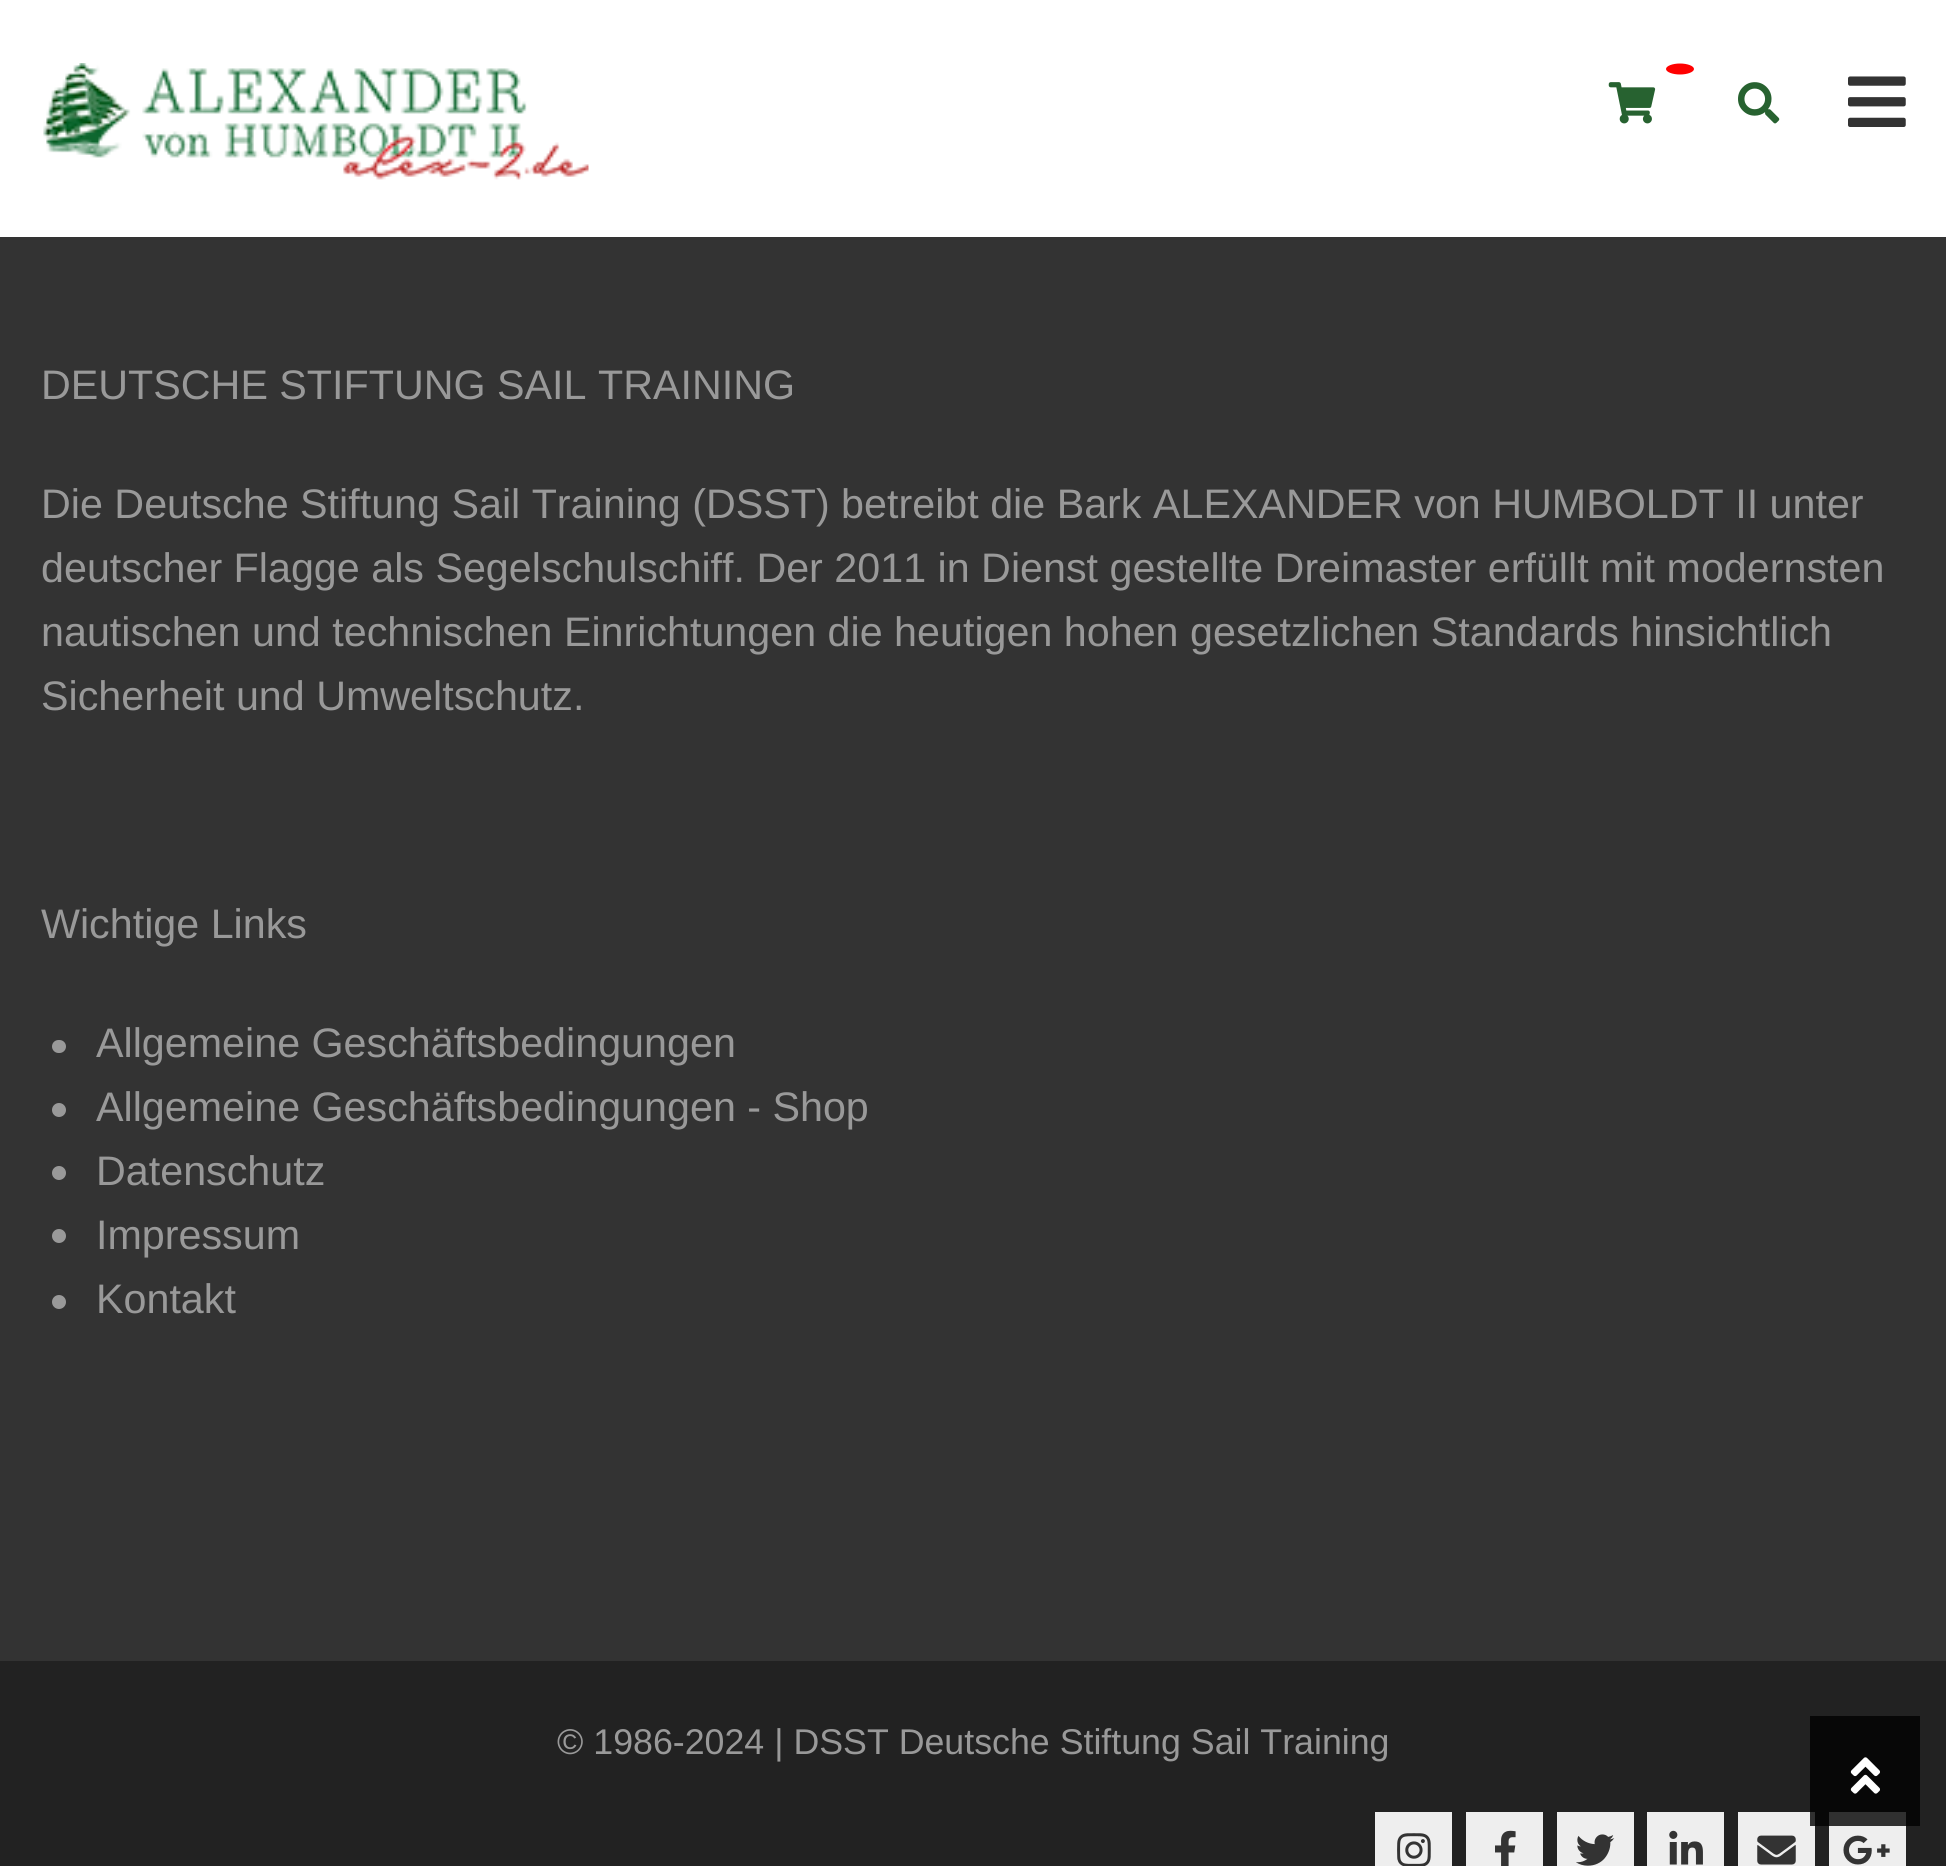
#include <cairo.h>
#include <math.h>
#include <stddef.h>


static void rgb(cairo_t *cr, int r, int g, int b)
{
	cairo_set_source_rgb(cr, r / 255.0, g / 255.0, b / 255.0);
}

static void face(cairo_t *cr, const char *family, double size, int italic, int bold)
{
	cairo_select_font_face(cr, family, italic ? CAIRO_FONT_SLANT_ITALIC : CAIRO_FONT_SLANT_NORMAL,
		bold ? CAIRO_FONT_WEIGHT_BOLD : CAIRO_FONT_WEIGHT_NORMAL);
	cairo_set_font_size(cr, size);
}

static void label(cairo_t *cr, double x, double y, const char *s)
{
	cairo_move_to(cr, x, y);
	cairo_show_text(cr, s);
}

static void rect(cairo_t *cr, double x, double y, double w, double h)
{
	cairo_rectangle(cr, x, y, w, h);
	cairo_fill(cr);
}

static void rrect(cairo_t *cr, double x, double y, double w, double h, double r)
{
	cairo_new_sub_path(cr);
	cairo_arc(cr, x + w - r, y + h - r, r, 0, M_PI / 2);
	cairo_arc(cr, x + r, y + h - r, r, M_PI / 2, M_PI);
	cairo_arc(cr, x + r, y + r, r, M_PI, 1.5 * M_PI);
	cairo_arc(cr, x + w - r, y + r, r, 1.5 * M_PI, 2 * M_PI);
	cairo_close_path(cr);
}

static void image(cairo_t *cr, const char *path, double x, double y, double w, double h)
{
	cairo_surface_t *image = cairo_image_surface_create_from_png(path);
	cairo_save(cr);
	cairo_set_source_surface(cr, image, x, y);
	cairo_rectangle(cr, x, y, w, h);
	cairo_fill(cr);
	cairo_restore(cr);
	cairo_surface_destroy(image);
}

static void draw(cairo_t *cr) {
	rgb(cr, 51, 51, 51);
	cairo_paint(cr);
	rgb(cr, 255, 255, 255);
	rect(cr, 0, 0, 1946, 237);
	image(cr, "image0.png", 43, 63, 546, 117);
	rgb(cr, 255, 0, 0);
	cairo_new_path(cr);
	cairo_move_to(cr, 1680, 63.5);
	cairo_curve_to(cr, 1687.5, 63.5, 1694, 66, 1694, 69);
	cairo_curve_to(cr, 1694, 72, 1687.5, 74.5, 1680, 74.5);
	cairo_curve_to(cr, 1672.5, 74.5, 1666, 72, 1666, 69);
	cairo_curve_to(cr, 1666, 66, 1672.5, 63.5, 1680, 63.5);
	cairo_close_path(cr);
	cairo_fill(cr);
	image(cr, "image1.png", 1608, 82, 48, 42);
	image(cr, "image2.png", 1738, 82, 42, 42);
	image(cr, "image3.png", 1848, 76, 58, 51);
	face(cr, "Liberation Sans", 41.25, 0, 0);
	rgb(cr, 153, 153, 153);
	label(cr, 41, 399, "DEUTSCHE STIFTUNG SAIL TRAINING");
	label(cr, 41, 518, "Die Deutsche Stiftung Sail Training (DSST) betreibt die Bark ALEXANDER von HUMBOLDT II unter");
	label(cr, 41, 582, "deutscher Flagge als Segelschulschiff. Der 2011 in Dienst gestellte Dreimaster erfüllt mit modernsten");
	label(cr, 41, 646, "nautischen und technischen Einrichtungen die heutigen hohen gesetzlichen Standards hinsichtlich");
	label(cr, 41, 710, "Sicherheit und Umweltschutz.");
	label(cr, 41, 938, "Wichtige Links");
	rrect(cr, 52, 1040, 14, 13, 6.5);
	cairo_fill(cr);
	label(cr, 96, 1057, "Allgemeine Geschäftsbedingungen");
	cairo_new_path(cr);
	cairo_arc(cr, 59, 1110, 7, 0, 2 * M_PI);
	cairo_fill(cr);
	label(cr, 96, 1121, "Allgemeine Geschäftsbedingungen - Shop");
	cairo_new_path(cr);
	cairo_arc(cr, 59, 1173, 7, 0, 2 * M_PI);
	cairo_fill(cr);
	label(cr, 96, 1185, "Datenschutz");
	cairo_new_path(cr);
	cairo_arc(cr, 59, 1236, 7, 0, 2 * M_PI);
	cairo_fill(cr);
	label(cr, 96, 1249, "Impressum");
	cairo_new_path(cr);
	cairo_arc(cr, 59, 1302, 7, 0, 2 * M_PI);
	cairo_fill(cr);
	label(cr, 96, 1313, "Kontakt");
	rgb(cr, 34, 34, 34);
	rect(cr, 0, 1661, 1946, 205);
	rgb(cr, 7, 7, 7);
	rect(cr, 1810, 1716, 110, 110);
	face(cr, "Liberation Sans", 35.75, 0, 0);
	rgb(cr, 153, 153, 153);
	label(cr, 557, 1754, "© 1986-2024 | DSST Deutsche Stiftung Sail Training");
	rgb(cr, 238, 238, 238);
	rect(cr, 1375, 1812, 77, 54);
	image(cr, "image4.png", 1397, 1833, 34, 33);
	rect(cr, 1466, 1812, 77, 54);
	image(cr, "image5.png", 1495, 1830, 21, 36);
	rect(cr, 1557, 1812, 77, 54);
	image(cr, "image6.png", 1576, 1834, 39, 32);
	rect(cr, 1647, 1812, 77, 54);
	image(cr, "image7.png", 1669, 1830, 34, 35);
	rect(cr, 1738, 1812, 77, 54);
	rgb(cr, 48, 48, 48);
	rect(cr, 1810, 1812, 5, 14);
	image(cr, "image8.png", 1757, 1835, 39, 30);
	rgb(cr, 238, 238, 238);
	rect(cr, 1829, 1826, 77, 40);
	rgb(cr, 48, 48, 48);
	rect(cr, 1829, 1812, 77, 14);
	image(cr, "image9.png", 1843, 1835, 47, 30);
	image(cr, "image10.png", 1850, 1757, 30, 37);
}

int main(void) {
	cairo_surface_t *surface = cairo_image_surface_create(CAIRO_FORMAT_RGB24, 1946, 1866);
	cairo_t *cr = cairo_create(surface);
	cairo_font_options_t *options = cairo_font_options_create();
	cairo_font_options_set_hint_metrics(options, CAIRO_HINT_METRICS_OFF);
	cairo_font_options_set_hint_style(options, CAIRO_HINT_STYLE_NONE);
	cairo_set_font_options(cr, options);
	cairo_set_miter_limit(cr, 4);
	draw(cr);
	cairo_surface_write_to_png(surface, "render.png");
	cairo_font_options_destroy(options);
	cairo_destroy(cr);
	cairo_surface_destroy(surface);
	return 0;
}
